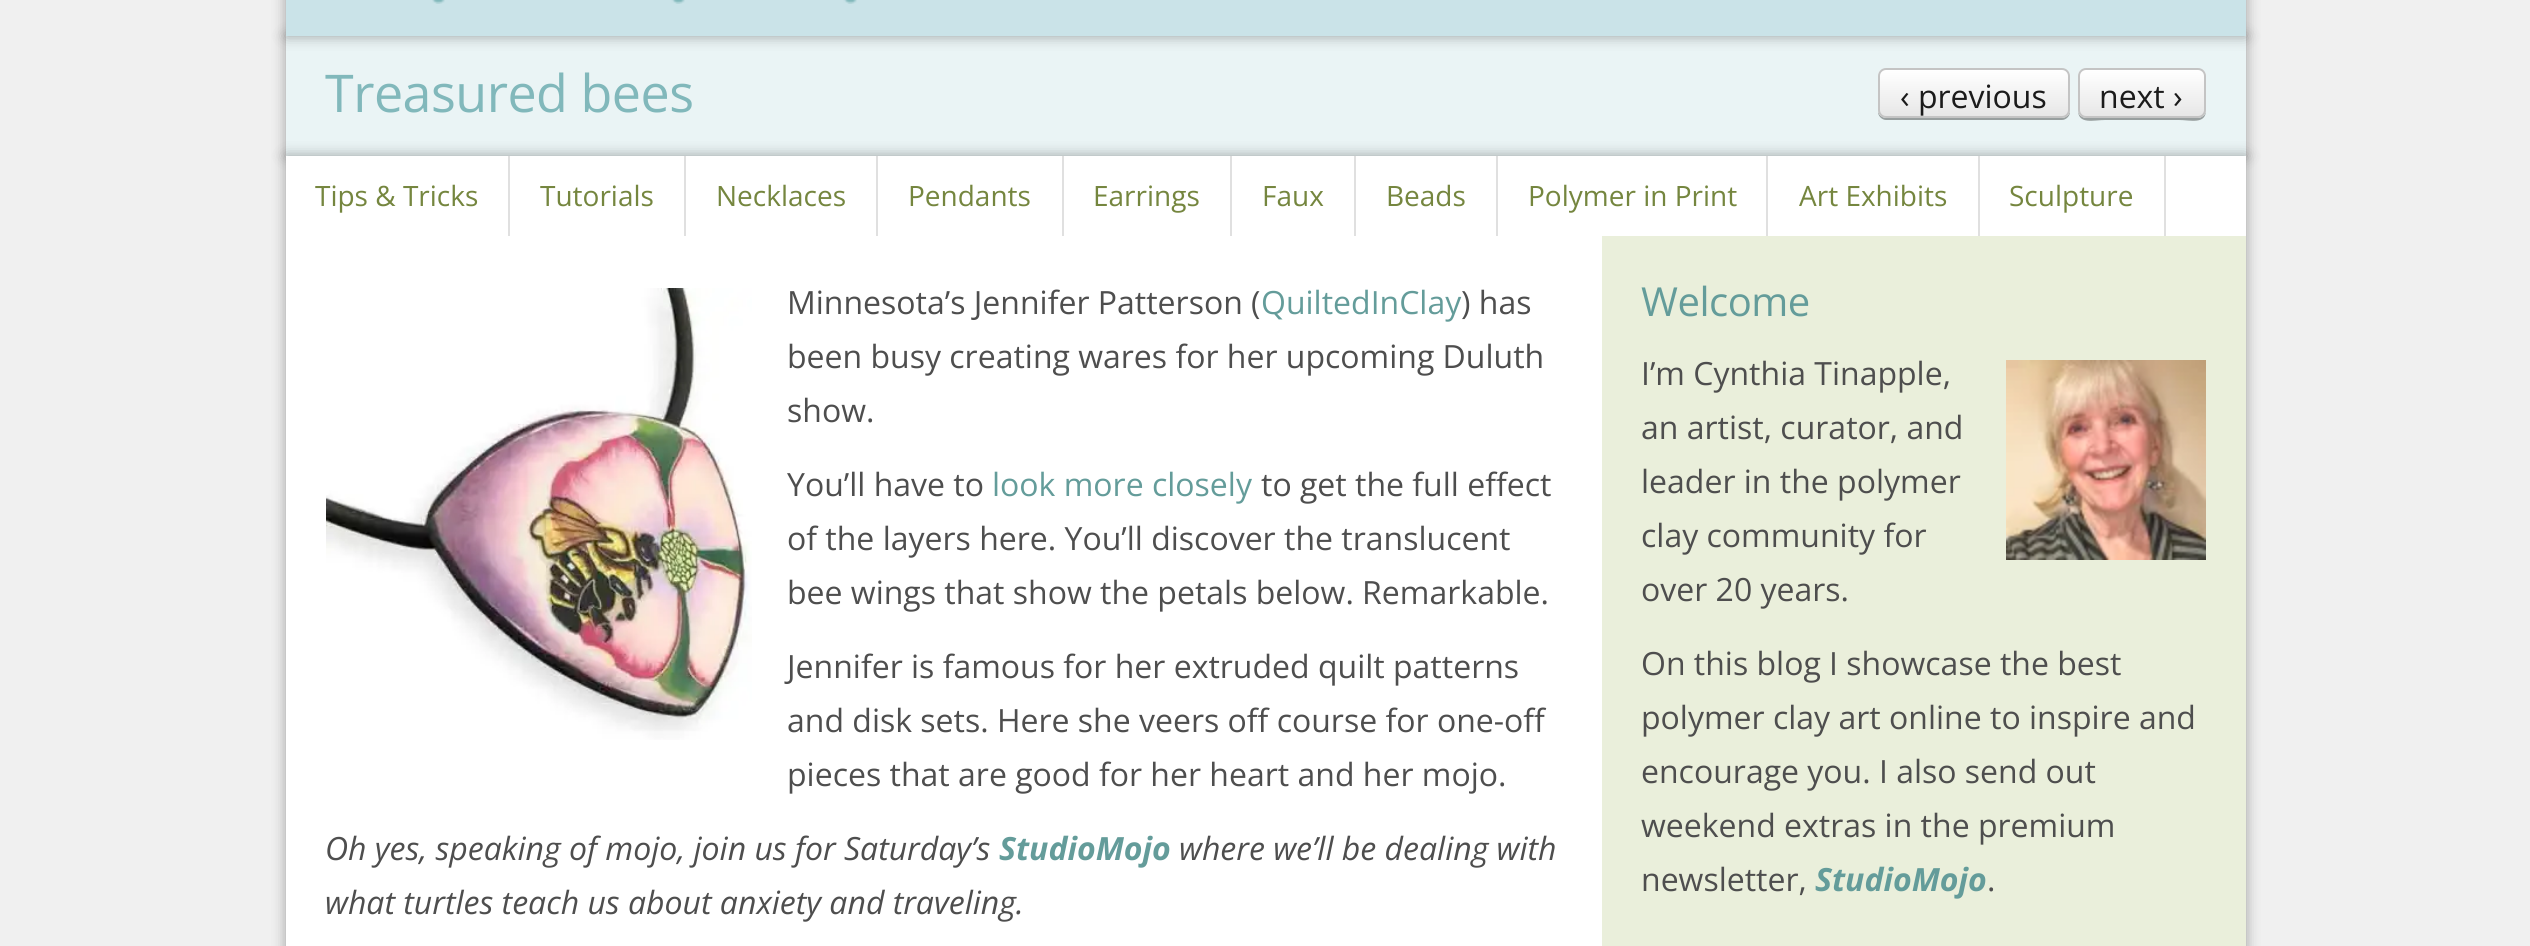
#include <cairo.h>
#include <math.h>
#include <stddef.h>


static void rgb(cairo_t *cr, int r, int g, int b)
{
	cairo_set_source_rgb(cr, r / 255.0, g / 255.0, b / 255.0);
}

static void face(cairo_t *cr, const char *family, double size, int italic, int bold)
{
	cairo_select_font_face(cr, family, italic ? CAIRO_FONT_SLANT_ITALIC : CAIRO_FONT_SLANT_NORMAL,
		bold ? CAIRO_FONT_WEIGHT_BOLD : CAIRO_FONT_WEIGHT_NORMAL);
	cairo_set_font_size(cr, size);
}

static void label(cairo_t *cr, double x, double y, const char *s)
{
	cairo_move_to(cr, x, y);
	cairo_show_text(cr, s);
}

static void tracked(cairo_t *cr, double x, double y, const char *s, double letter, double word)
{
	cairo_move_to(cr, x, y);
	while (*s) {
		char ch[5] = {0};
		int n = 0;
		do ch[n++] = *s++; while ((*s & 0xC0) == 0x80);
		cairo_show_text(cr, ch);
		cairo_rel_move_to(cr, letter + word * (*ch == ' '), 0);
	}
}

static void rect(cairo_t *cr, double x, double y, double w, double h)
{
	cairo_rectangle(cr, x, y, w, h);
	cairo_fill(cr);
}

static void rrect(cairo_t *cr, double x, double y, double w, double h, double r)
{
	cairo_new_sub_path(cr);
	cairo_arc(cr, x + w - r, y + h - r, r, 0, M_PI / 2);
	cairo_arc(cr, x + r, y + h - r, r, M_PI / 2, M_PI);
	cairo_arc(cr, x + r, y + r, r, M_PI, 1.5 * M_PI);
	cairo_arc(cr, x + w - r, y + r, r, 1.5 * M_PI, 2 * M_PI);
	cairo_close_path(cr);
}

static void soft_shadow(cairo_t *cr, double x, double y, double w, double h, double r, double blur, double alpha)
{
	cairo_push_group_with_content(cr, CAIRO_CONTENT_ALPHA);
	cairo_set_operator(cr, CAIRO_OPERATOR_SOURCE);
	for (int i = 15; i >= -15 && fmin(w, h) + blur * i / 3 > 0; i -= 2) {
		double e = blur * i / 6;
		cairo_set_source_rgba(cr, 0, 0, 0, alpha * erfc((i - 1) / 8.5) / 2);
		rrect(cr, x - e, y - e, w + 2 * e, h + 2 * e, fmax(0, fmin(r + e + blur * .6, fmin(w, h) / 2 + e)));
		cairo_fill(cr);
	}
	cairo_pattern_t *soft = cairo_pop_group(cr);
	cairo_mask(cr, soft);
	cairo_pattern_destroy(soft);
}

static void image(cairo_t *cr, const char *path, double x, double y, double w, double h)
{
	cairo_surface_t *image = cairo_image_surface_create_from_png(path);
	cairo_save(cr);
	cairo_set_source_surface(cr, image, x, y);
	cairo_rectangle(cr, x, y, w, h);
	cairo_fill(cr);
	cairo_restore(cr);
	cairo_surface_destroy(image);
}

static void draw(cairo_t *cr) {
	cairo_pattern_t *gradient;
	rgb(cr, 240, 240, 240);
	cairo_paint(cr);
	rgb(cr, 0, 0, 0);
	soft_shadow(cr, 286, 36, 1960, 120, 0, 7, 0.35);
	rgb(cr, 234, 244, 245);
	rect(cr, 286, 36, 1960, 120);
	rgb(cr, 0, 0, 0);
	soft_shadow(cr, 286, -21, 1960, 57, 0, 7, 0.35);
	rgb(cr, 202, 227, 232);
	rect(cr, 286, 0, 1960, 36);
	image(cr, "image0.png", 432, 0, 425, 4);
	face(cr, "Open Sans", 52, 0, 0);
	rgb(cr, 129, 184, 187);
	tracked(cr, 325, 112, "Treasured bees", -0.5, 0);
	rgb(cr, 152, 159, 159);
	cairo_new_path(cr);
	cairo_move_to(cr, 1878, 110);
	cairo_line_to(cr, 1878, 112);
	cairo_curve_to(cr, 1878, 116, 1882, 120, 1886, 120);
	cairo_line_to(cr, 2062, 120);
	cairo_curve_to(cr, 2066, 120, 2070, 116, 2070, 112);
	cairo_line_to(cr, 2070, 110);
	cairo_curve_to(cr, 2070, 114, 2066, 118, 2062, 118);
	cairo_line_to(cr, 1886, 118);
	cairo_curve_to(cr, 1882, 118, 1878, 114, 1878, 110);
	cairo_close_path(cr);
	cairo_fill(cr);
	cairo_save(cr);
	rrect(cr, 1878, 68, 192, 50, 8);
	cairo_clip(cr);
	gradient = cairo_pattern_create_linear(1974, 70, 1974, 116);
	cairo_pattern_add_color_stop_rgba(gradient, 0, 1, 1, 1, 1);
	cairo_pattern_add_color_stop_rgba(gradient, 1, 0.906, 0.906, 0.906, 1);
	cairo_set_source(cr, gradient);
	cairo_pattern_destroy(gradient);
	rect(cr, 1878, 70, 192, 46);
	cairo_restore(cr);
	rrect(cr, 1879, 69, 190, 48, 7);
	rgb(cr, 196, 196, 196);
	cairo_stroke(cr);
	face(cr, "Open Sans", 32, 0, 0);
	rgb(cr, 27, 27, 27);
	label(cr, 1900, 108, "‹ previous");
	rgb(cr, 152, 159, 159);
	cairo_new_path(cr);
	cairo_move_to(cr, 2078, 110);
	cairo_curve_to(cr, 2078, 125, 2094, 120, 2105, 120);
	cairo_line_to(cr, 2179, 120);
	cairo_curve_to(cr, 2190, 120, 2206, 125, 2206, 110);
	cairo_curve_to(cr, 2206, 114, 2202, 118, 2198, 118);
	cairo_line_to(cr, 2086, 118);
	cairo_curve_to(cr, 2082, 118, 2078, 114, 2078, 110);
	cairo_close_path(cr);
	cairo_fill(cr);
	cairo_save(cr);
	rrect(cr, 2078, 68, 128, 50, 8);
	cairo_clip(cr);
	gradient = cairo_pattern_create_linear(2142, 70, 2142, 116);
	cairo_pattern_add_color_stop_rgba(gradient, 0, 1, 1, 1, 1);
	cairo_pattern_add_color_stop_rgba(gradient, 1, 0.906, 0.906, 0.906, 1);
	cairo_set_source(cr, gradient);
	cairo_pattern_destroy(gradient);
	rect(cr, 2078, 70, 128, 46);
	cairo_restore(cr);
	rrect(cr, 2079, 69, 126, 48, 7);
	rgb(cr, 196, 196, 196);
	cairo_stroke(cr);
	rgb(cr, 27, 27, 27);
	label(cr, 2099, 108, "next ›");
	rgb(cr, 0, 0, 0);
	soft_shadow(cr, 286, 156, 1960, 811, 0, 7, 0.35);
	rgb(cr, 255, 255, 255);
	rect(cr, 286, 156, 1960, 790);
	rgb(cr, 224, 224, 224);
	rect(cr, 508, 156, 2, 80);
	face(cr, "Open Sans", 28, 0, 0);
	rgb(cr, 117, 134, 63);
	label(cr, 315, 206, "Tips & Tricks");
	rgb(cr, 224, 224, 224);
	rect(cr, 684, 156, 2, 80);
	rgb(cr, 117, 134, 63);
	label(cr, 540, 206, "Tutorials");
	rgb(cr, 224, 224, 224);
	rect(cr, 876, 156, 2, 80);
	rgb(cr, 117, 134, 63);
	label(cr, 716, 206, "Necklaces");
	rgb(cr, 224, 224, 224);
	rect(cr, 1062, 156, 2, 80);
	rgb(cr, 117, 134, 63);
	label(cr, 908, 206, "Pendants");
	rgb(cr, 224, 224, 224);
	rect(cr, 1230, 156, 2, 80);
	rgb(cr, 117, 134, 63);
	label(cr, 1093, 206, "Earrings");
	rgb(cr, 224, 224, 224);
	rect(cr, 1354, 156, 2, 80);
	rgb(cr, 117, 134, 63);
	label(cr, 1262, 206, "Faux");
	rgb(cr, 224, 224, 224);
	rect(cr, 1496, 156, 2, 80);
	rgb(cr, 117, 134, 63);
	label(cr, 1386, 206, "Beads");
	rgb(cr, 224, 224, 224);
	rect(cr, 1766, 156, 2, 80);
	rgb(cr, 117, 134, 63);
	label(cr, 1528, 206, "Polymer in Print");
	rgb(cr, 224, 224, 224);
	rect(cr, 1978, 156, 2, 80);
	rgb(cr, 117, 134, 63);
	label(cr, 1799, 206, "Art Exhibits");
	rgb(cr, 224, 224, 224);
	rect(cr, 2164, 156, 2, 80);
	rgb(cr, 117, 134, 63);
	label(cr, 2009, 206, "Sculpture");
	image(cr, "image1.png", 326, 288, 426, 452);
	face(cr, "Open Sans", 32, 0, 0);
	rgb(cr, 78, 78, 78);
	label(cr, 787, 314, "Minnesota’s Jennifer Patterson (");
	rgb(cr, 100, 156, 154);
	label(cr, 1261, 314, "QuiltedInClay");
	rgb(cr, 78, 78, 78);
	label(cr, 1461, 314, ") has");
	label(cr, 787, 368, "been busy creating wares for her upcoming Duluth");
	label(cr, 787, 422, "show.");
	label(cr, 787, 496, "You’ll have to");
	rgb(cr, 100, 156, 154);
	label(cr, 992, 496, "look more closely");
	rgb(cr, 78, 78, 78);
	label(cr, 1261, 496, "to get the full effect");
	label(cr, 787, 550, "of the layers here. You’ll discover the translucent");
	label(cr, 787, 604, "bee wings that show the petals below. Remarkable.");
	label(cr, 787, 678, "Jennifer is famous for her extruded quilt patterns");
	label(cr, 787, 732, "and disk sets. Here she veers off course for one-off");
	label(cr, 787, 786, "pieces that are good for her heart and her mojo.");
	face(cr, "Open Sans", 32, 1, 0);
	label(cr, 325, 860, "Oh yes, speaking of mojo, join us for Saturday’s");
	face(cr, "Open Sans", 32, 1, 1);
	rgb(cr, 100, 156, 154);
	label(cr, 999, 860, "StudioMojo");
	face(cr, "Open Sans", 32, 1, 0);
	rgb(cr, 78, 78, 78);
	label(cr, 1179, 860, "where we’ll be dealing with");
	label(cr, 325, 914, "what turtles teach us about anxiety and traveling.");
	rgb(cr, 234, 239, 219);
	rect(cr, 1602, 236, 644, 710);
	face(cr, "Open Sans", 40, 0, 0);
	rgb(cr, 100, 156, 154);
	tracked(cr, 1641, 316, "Welcome", -0.5, 0);
	face(cr, "Open Sans", 32, 0, 0);
	rgb(cr, 78, 78, 78);
	label(cr, 1641, 385, "I’m Cynthia Tinapple,");
	image(cr, "image2.png", 2006, 360, 200, 200);
	label(cr, 1641, 439, "an artist, curator, and");
	label(cr, 1641, 493, "leader in the polymer");
	label(cr, 1641, 547, "clay community for");
	label(cr, 1641, 601, "over 20 years.");
	label(cr, 1641, 675, "On this blog I showcase the best");
	label(cr, 1641, 729, "polymer clay art online to inspire and");
	label(cr, 1641, 783, "encourage you. I also send out");
	label(cr, 1641, 837, "weekend extras in the premium");
	label(cr, 1641, 891, "newsletter,");
	face(cr, "Open Sans", 32, 1, 1);
	rgb(cr, 100, 156, 154);
	label(cr, 1815, 891, "StudioMojo");
	face(cr, "Open Sans", 32, 0, 0);
	rgb(cr, 78, 78, 78);
	label(cr, 1987, 891, ".");
}

int main(void) {
	cairo_surface_t *surface = cairo_image_surface_create(CAIRO_FORMAT_RGB24, 2530, 946);
	cairo_t *cr = cairo_create(surface);
	cairo_font_options_t *options = cairo_font_options_create();
	cairo_font_options_set_hint_metrics(options, CAIRO_HINT_METRICS_OFF);
	cairo_font_options_set_hint_style(options, CAIRO_HINT_STYLE_NONE);
	cairo_set_font_options(cr, options);
	cairo_set_miter_limit(cr, 4);
	draw(cr);
	cairo_surface_write_to_png(surface, "render.png");
	cairo_font_options_destroy(options);
	cairo_destroy(cr);
	cairo_surface_destroy(surface);
	return 0;
}
